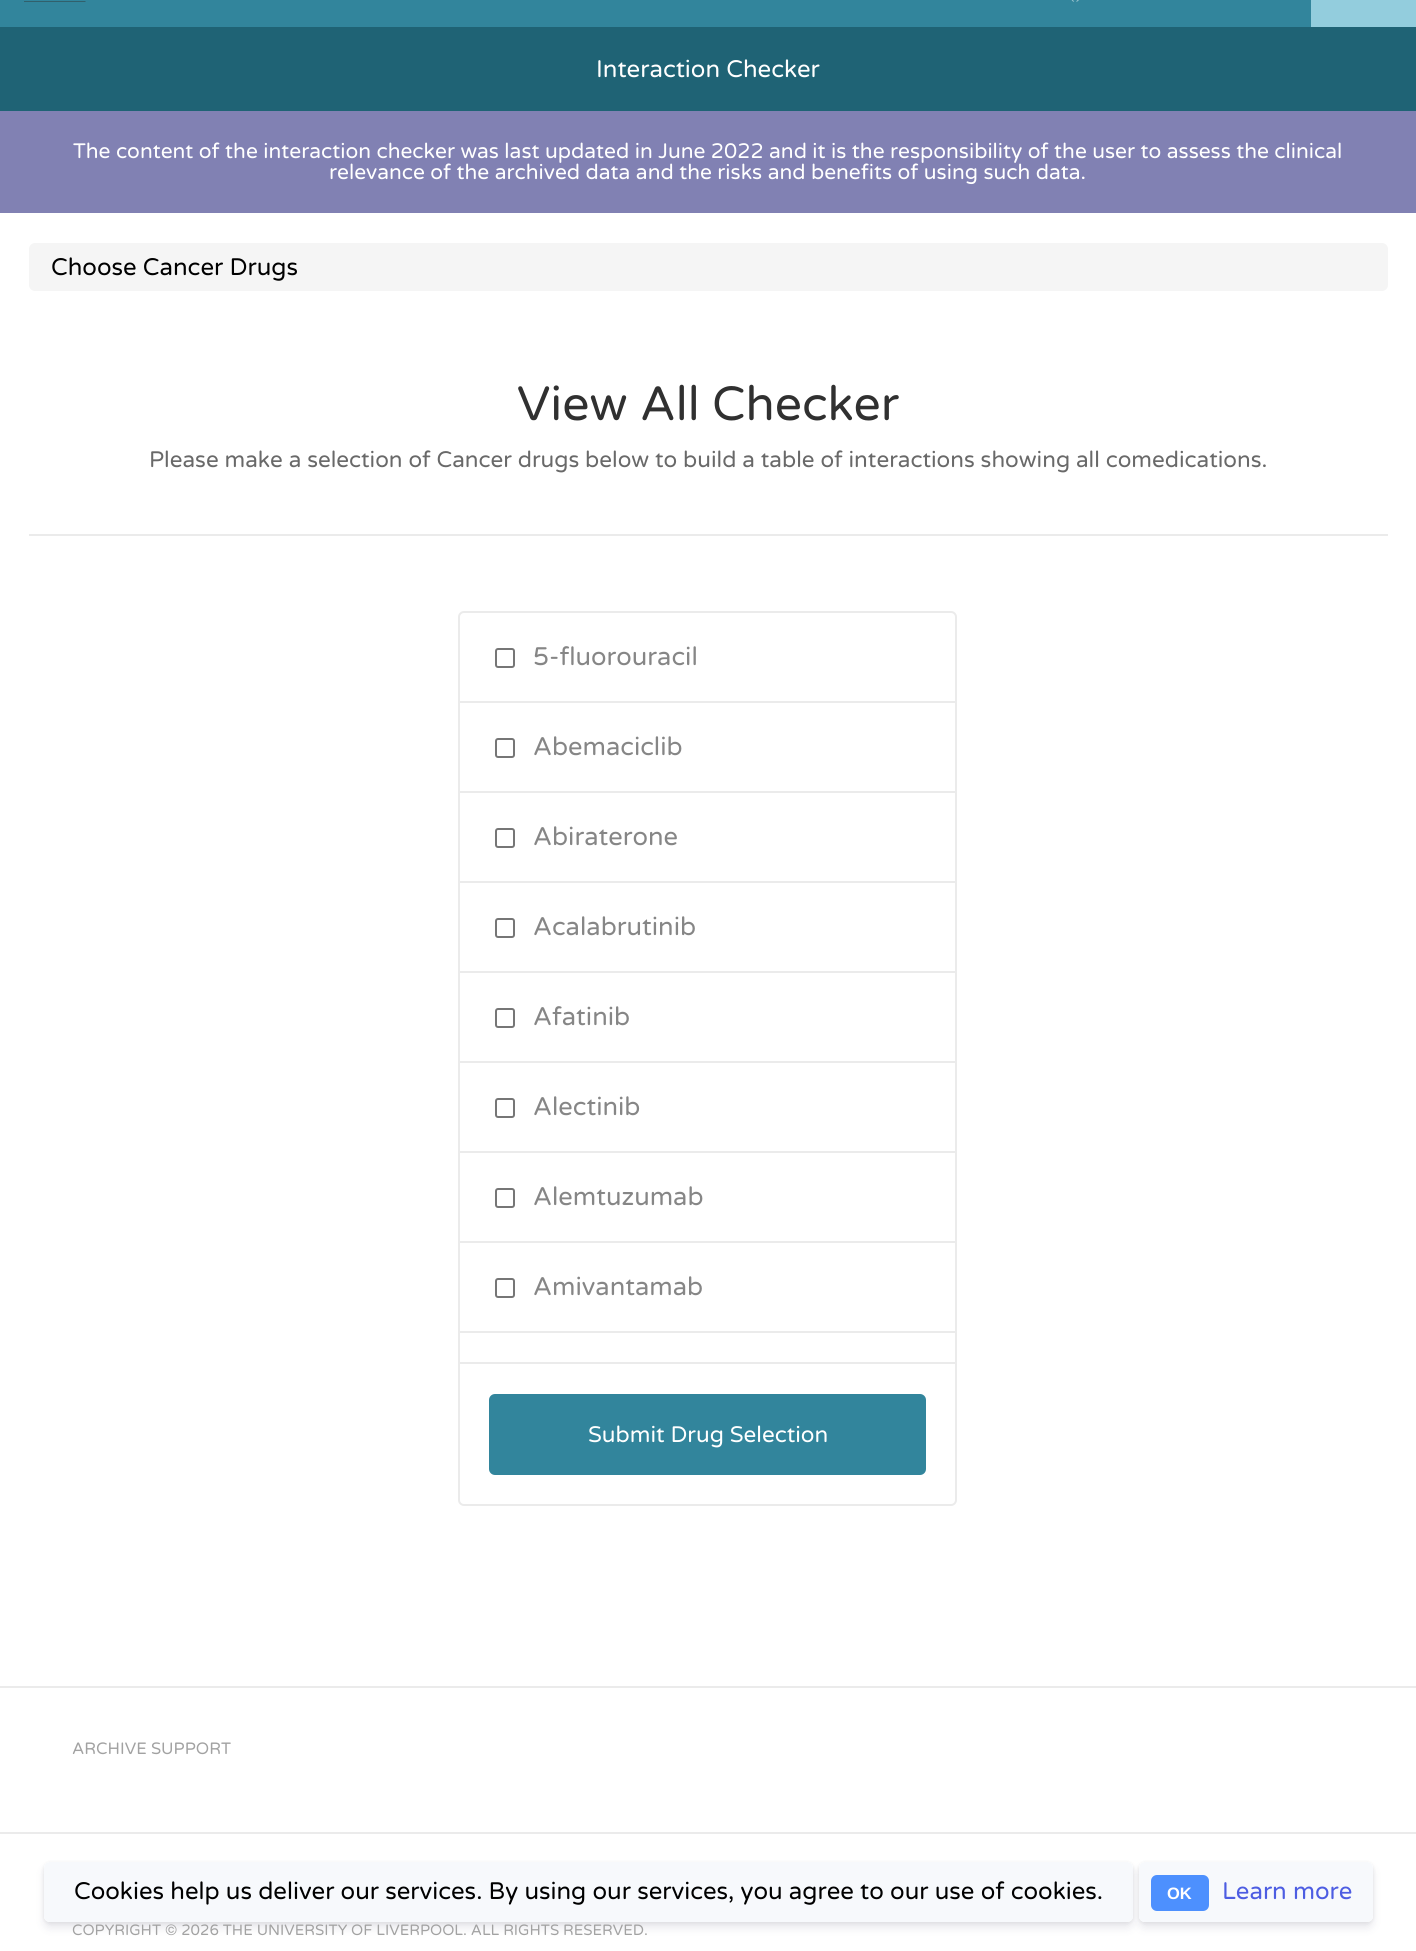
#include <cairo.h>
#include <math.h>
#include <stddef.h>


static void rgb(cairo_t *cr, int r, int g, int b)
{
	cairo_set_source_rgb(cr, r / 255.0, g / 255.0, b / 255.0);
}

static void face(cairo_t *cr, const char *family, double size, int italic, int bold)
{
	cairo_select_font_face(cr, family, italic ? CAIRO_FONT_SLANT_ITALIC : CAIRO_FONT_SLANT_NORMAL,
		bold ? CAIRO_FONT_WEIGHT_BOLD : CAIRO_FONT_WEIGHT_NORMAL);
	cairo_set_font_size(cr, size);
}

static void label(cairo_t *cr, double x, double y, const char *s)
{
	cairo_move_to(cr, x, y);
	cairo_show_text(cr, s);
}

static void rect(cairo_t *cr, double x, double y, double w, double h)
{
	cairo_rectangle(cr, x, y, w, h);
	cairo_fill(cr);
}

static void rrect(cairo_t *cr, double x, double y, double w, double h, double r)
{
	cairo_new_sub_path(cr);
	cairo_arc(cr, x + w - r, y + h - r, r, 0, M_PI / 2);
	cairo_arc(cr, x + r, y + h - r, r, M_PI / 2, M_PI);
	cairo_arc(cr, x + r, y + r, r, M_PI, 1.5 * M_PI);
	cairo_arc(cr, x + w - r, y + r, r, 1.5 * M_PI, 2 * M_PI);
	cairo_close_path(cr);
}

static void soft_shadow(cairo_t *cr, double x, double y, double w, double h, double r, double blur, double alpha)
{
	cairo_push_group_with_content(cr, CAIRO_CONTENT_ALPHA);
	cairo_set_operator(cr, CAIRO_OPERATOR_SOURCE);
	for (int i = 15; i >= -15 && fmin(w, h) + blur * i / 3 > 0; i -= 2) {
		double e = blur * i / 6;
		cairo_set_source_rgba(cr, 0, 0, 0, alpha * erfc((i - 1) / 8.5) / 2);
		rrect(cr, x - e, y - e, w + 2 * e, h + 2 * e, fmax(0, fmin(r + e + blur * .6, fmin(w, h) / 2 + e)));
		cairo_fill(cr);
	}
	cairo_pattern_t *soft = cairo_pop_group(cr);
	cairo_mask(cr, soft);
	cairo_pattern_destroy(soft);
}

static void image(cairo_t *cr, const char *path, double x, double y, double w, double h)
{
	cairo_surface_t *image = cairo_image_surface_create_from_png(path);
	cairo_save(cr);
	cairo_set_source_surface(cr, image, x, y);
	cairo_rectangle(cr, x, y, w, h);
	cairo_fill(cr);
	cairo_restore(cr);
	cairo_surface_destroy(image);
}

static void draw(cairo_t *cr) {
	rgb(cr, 255, 255, 255);
	cairo_paint(cr);
	rgb(cr, 50, 133, 156);
	rect(cr, 0, 0, 1311, 27);
	image(cr, "image0.png", 24, 1, 62, 1);
	image(cr, "image1.png", 1071, 0, 8, 2);
	rgb(cr, 147, 205, 221);
	rect(cr, 1311, 0, 105, 27);
	rgb(cr, 31, 99, 117);
	rect(cr, 0, 27, 1416, 84);
	face(cr, "Varela Round", 24, 0, 0);
	rgb(cr, 255, 255, 255);
	label(cr, 596, 77, "Interaction Checker");
	rgb(cr, 129, 129, 179);
	rect(cr, 0, 111, 1416, 102);
	face(cr, "Varela Round", 21, 0, 0);
	rgb(cr, 255, 255, 255);
	label(cr, 73, 158, "The content of the interaction checker was last updated in June 2022 and it is the responsibility of the user to assess the clinical");
	label(cr, 329, 179, "relevance of the archived data and the risks and benefits of using such data.");
	rgb(cr, 245, 245, 245);
	rrect(cr, 29, 243, 1359, 48, 6);
	cairo_fill(cr);
	face(cr, "Varela Round", 24, 0, 0);
	rgb(cr, 0, 0, 0);
	label(cr, 51, 275, "Choose Cancer Drugs");
	rgb(cr, 235, 235, 235);
	rect(cr, 29, 534, 1359, 2);
	face(cr, "Varela Round", 48, 0, 0);
	rgb(cr, 48, 48, 48);
	label(cr, 517, 420, "View All Checker");
	face(cr, "Varela Round", 22.5, 0, 0);
	rgb(cr, 105, 105, 105);
	label(cr, 149, 467, "Please make a selection of Cancer drugs below to build a table of interactions showing all comedications.");
	rrect(cr, 459, 612, 497, 893, 5);
	rgb(cr, 235, 235, 235);
	cairo_stroke(cr);
	rect(cr, 459, 701, 497, 2);
	rrect(cr, 496, 649, 18, 18, 2);
	rgb(cr, 118, 118, 118);
	cairo_stroke(cr);
	face(cr, "Varela Round", 25.5, 0, 0);
	rgb(cr, 134, 134, 134);
	label(cr, 533, 665, "5-fluorouracil");
	rgb(cr, 235, 235, 235);
	rect(cr, 459, 791, 497, 2);
	rrect(cr, 496, 739, 18, 18, 2);
	rgb(cr, 118, 118, 118);
	cairo_stroke(cr);
	rgb(cr, 134, 134, 134);
	label(cr, 533, 755, "Abemaciclib");
	rgb(cr, 235, 235, 235);
	rect(cr, 459, 881, 497, 2);
	rrect(cr, 496, 829, 18, 18, 2);
	rgb(cr, 118, 118, 118);
	cairo_stroke(cr);
	rgb(cr, 134, 134, 134);
	label(cr, 533, 845, "Abiraterone");
	rgb(cr, 235, 235, 235);
	rect(cr, 459, 971, 497, 2);
	rrect(cr, 496, 919, 18, 18, 2);
	rgb(cr, 118, 118, 118);
	cairo_stroke(cr);
	rgb(cr, 134, 134, 134);
	label(cr, 533, 935, "Acalabrutinib");
	rgb(cr, 235, 235, 235);
	rect(cr, 459, 1061, 497, 2);
	rrect(cr, 496, 1009, 18, 18, 2);
	rgb(cr, 118, 118, 118);
	cairo_stroke(cr);
	rgb(cr, 134, 134, 134);
	label(cr, 533, 1025, "Afatinib");
	rgb(cr, 235, 235, 235);
	rect(cr, 459, 1151, 497, 2);
	rrect(cr, 496, 1099, 18, 18, 2);
	rgb(cr, 118, 118, 118);
	cairo_stroke(cr);
	rgb(cr, 134, 134, 134);
	label(cr, 533, 1115, "Alectinib");
	rgb(cr, 235, 235, 235);
	rect(cr, 459, 1241, 497, 2);
	rrect(cr, 496, 1189, 18, 18, 2);
	rgb(cr, 118, 118, 118);
	cairo_stroke(cr);
	rgb(cr, 134, 134, 134);
	label(cr, 533, 1205, "Alemtuzumab");
	rgb(cr, 235, 235, 235);
	rect(cr, 459, 1331, 497, 2);
	rrect(cr, 496, 1279, 18, 18, 2);
	rgb(cr, 118, 118, 118);
	cairo_stroke(cr);
	rgb(cr, 134, 134, 134);
	label(cr, 533, 1295, "Amivantamab");
	rgb(cr, 235, 235, 235);
	rect(cr, 459, 1362, 497, 2);
	rgb(cr, 50, 133, 156);
	rrect(cr, 489, 1394, 437, 81, 6);
	cairo_fill(cr);
	face(cr, "Varela Round", 22.5, 0, 0);
	rgb(cr, 255, 255, 255);
	label(cr, 588, 1442, "Submit Drug Selection");
	rgb(cr, 235, 235, 235);
	rect(cr, 0, 1686, 1416, 2);
	face(cr, "Varela Round", 16.5, 0, 0);
	rgb(cr, 162, 162, 162);
	label(cr, 72, 1754, "ARCHIVE SUPPORT");
	cairo_save(cr);
	cairo_set_fill_rule(cr, CAIRO_FILL_RULE_EVEN_ODD);
	cairo_new_path(cr);
	cairo_move_to(cr, 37, 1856);
	cairo_line_to(cr, 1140, 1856);
	cairo_line_to(cr, 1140, 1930);
	cairo_line_to(cr, 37, 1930);
	cairo_close_path(cr);
	cairo_move_to(cr, 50, 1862);
	cairo_line_to(cr, 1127, 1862);
	cairo_curve_to(cr, 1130.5, 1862, 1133, 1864.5, 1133, 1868);
	cairo_line_to(cr, 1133, 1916);
	cairo_curve_to(cr, 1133, 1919.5, 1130.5, 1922, 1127, 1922);
	cairo_line_to(cr, 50, 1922);
	cairo_curve_to(cr, 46.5, 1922, 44, 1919.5, 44, 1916);
	cairo_line_to(cr, 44, 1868);
	cairo_curve_to(cr, 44, 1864.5, 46.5, 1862, 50, 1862);
	cairo_close_path(cr);
	cairo_clip(cr);
	rgb(cr, 0, 0, 0);
	soft_shadow(cr, 44, 1863, 1089, 60, 6, 2, 0.08);
	cairo_restore(cr);
	cairo_save(cr);
	cairo_set_fill_rule(cr, CAIRO_FILL_RULE_EVEN_ODD);
	cairo_new_path(cr);
	cairo_move_to(cr, 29, 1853);
	cairo_line_to(cr, 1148, 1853);
	cairo_line_to(cr, 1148, 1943);
	cairo_line_to(cr, 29, 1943);
	cairo_close_path(cr);
	cairo_move_to(cr, 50, 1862);
	cairo_line_to(cr, 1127, 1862);
	cairo_curve_to(cr, 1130.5, 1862, 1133, 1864.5, 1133, 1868);
	cairo_line_to(cr, 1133, 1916);
	cairo_curve_to(cr, 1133, 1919.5, 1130.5, 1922, 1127, 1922);
	cairo_line_to(cr, 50, 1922);
	cairo_curve_to(cr, 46.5, 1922, 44, 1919.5, 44, 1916);
	cairo_line_to(cr, 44, 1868);
	cairo_curve_to(cr, 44, 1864.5, 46.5, 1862, 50, 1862);
	cairo_close_path(cr);
	cairo_clip(cr);
	rgb(cr, 50, 50, 93);
	soft_shadow(cr, 44, 1868, 1089, 60, 6, 4.5, 0.11);
	cairo_restore(cr);
	cairo_set_source_rgba(cr, 0.965, 0.976, 0.988, 0.9);
	rrect(cr, 44, 1862, 1089, 60, 6);
	cairo_fill(cr);
	face(cr, "Varela Round", 24, 0, 0);
	rgb(cr, 0, 0, 0);
	label(cr, 74, 1899, "Cookies help us deliver our services. By using our services, you agree to our use of cookies.");
	cairo_save(cr);
	cairo_set_fill_rule(cr, CAIRO_FILL_RULE_EVEN_ODD);
	cairo_new_path(cr);
	cairo_move_to(cr, 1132, 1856);
	cairo_line_to(cr, 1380, 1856);
	cairo_line_to(cr, 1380, 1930);
	cairo_line_to(cr, 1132, 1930);
	cairo_close_path(cr);
	cairo_move_to(cr, 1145, 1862);
	cairo_line_to(cr, 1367, 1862);
	cairo_curve_to(cr, 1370.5, 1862, 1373, 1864.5, 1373, 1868);
	cairo_line_to(cr, 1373, 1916);
	cairo_curve_to(cr, 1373, 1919.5, 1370.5, 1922, 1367, 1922);
	cairo_line_to(cr, 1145, 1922);
	cairo_curve_to(cr, 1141.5, 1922, 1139, 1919.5, 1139, 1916);
	cairo_line_to(cr, 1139, 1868);
	cairo_curve_to(cr, 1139, 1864.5, 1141.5, 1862, 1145, 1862);
	cairo_close_path(cr);
	cairo_clip(cr);
	rgb(cr, 0, 0, 0);
	soft_shadow(cr, 1139, 1863, 234, 60, 6, 2, 0.08);
	cairo_restore(cr);
	cairo_save(cr);
	cairo_set_fill_rule(cr, CAIRO_FILL_RULE_EVEN_ODD);
	cairo_new_path(cr);
	cairo_move_to(cr, 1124, 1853);
	cairo_line_to(cr, 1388, 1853);
	cairo_line_to(cr, 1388, 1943);
	cairo_line_to(cr, 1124, 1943);
	cairo_close_path(cr);
	cairo_move_to(cr, 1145, 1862);
	cairo_line_to(cr, 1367, 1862);
	cairo_curve_to(cr, 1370.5, 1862, 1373, 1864.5, 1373, 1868);
	cairo_line_to(cr, 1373, 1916);
	cairo_curve_to(cr, 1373, 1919.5, 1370.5, 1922, 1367, 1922);
	cairo_line_to(cr, 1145, 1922);
	cairo_curve_to(cr, 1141.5, 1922, 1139, 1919.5, 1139, 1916);
	cairo_line_to(cr, 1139, 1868);
	cairo_curve_to(cr, 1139, 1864.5, 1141.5, 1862, 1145, 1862);
	cairo_close_path(cr);
	cairo_clip(cr);
	rgb(cr, 50, 50, 93);
	soft_shadow(cr, 1139, 1868, 234, 60, 6, 4.5, 0.11);
	cairo_restore(cr);
	cairo_set_source_rgba(cr, 0.965, 0.976, 0.988, 0.9);
	rrect(cr, 1139, 1862, 234, 60, 6);
	cairo_fill(cr);
	rgb(cr, 77, 144, 254);
	rrect(cr, 1151, 1875, 58, 36, 6);
	cairo_fill(cr);
	face(cr, "Liberation Sans", 16.5, 0, 1);
	rgb(cr, 255, 255, 255);
	label(cr, 1167, 1899, "OK");
	face(cr, "Varela Round", 24, 0, 0);
	rgb(cr, 77, 93, 226);
	label(cr, 1222, 1899, "Learn more");
	rgb(cr, 235, 235, 235);
	rect(cr, 0, 1832, 1416, 2);
	face(cr, "Varela Round", 15, 0, 0);
	rgb(cr, 162, 162, 162);
	label(cr, 72, 1935, "COPYRIGHT © 2026 THE UNIVERSITY OF LIVERPOOL. ALL RIGHTS RESERVED.");
}

int main(void) {
	cairo_surface_t *surface = cairo_image_surface_create(CAIRO_FORMAT_RGB24, 1416, 1951);
	cairo_t *cr = cairo_create(surface);
	cairo_font_options_t *options = cairo_font_options_create();
	cairo_font_options_set_hint_metrics(options, CAIRO_HINT_METRICS_OFF);
	cairo_font_options_set_hint_style(options, CAIRO_HINT_STYLE_NONE);
	cairo_set_font_options(cr, options);
	cairo_set_miter_limit(cr, 4);
	draw(cr);
	cairo_surface_write_to_png(surface, "render.png");
	cairo_font_options_destroy(options);
	cairo_destroy(cr);
	cairo_surface_destroy(surface);
	return 0;
}
